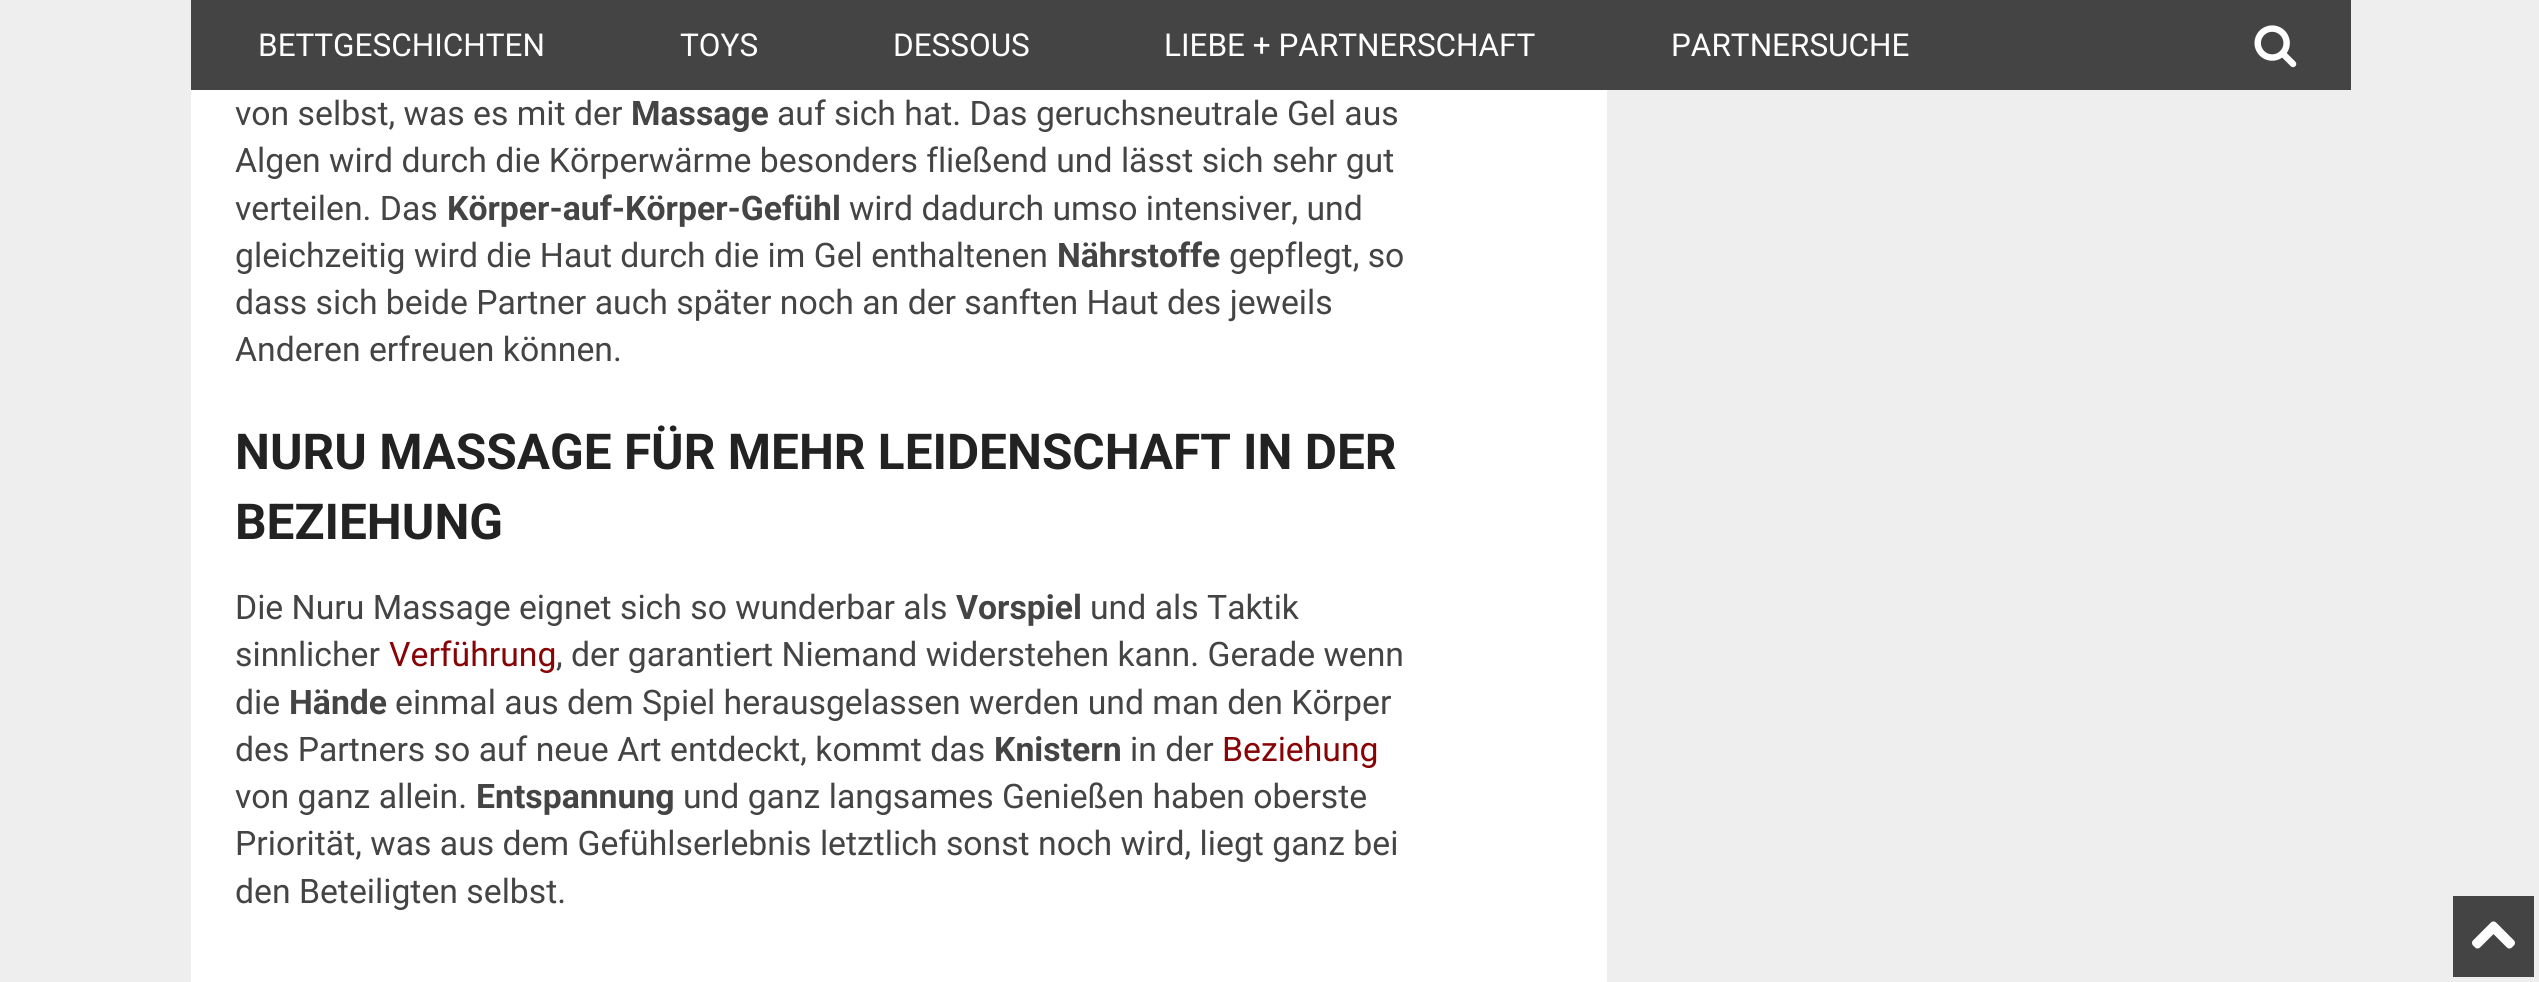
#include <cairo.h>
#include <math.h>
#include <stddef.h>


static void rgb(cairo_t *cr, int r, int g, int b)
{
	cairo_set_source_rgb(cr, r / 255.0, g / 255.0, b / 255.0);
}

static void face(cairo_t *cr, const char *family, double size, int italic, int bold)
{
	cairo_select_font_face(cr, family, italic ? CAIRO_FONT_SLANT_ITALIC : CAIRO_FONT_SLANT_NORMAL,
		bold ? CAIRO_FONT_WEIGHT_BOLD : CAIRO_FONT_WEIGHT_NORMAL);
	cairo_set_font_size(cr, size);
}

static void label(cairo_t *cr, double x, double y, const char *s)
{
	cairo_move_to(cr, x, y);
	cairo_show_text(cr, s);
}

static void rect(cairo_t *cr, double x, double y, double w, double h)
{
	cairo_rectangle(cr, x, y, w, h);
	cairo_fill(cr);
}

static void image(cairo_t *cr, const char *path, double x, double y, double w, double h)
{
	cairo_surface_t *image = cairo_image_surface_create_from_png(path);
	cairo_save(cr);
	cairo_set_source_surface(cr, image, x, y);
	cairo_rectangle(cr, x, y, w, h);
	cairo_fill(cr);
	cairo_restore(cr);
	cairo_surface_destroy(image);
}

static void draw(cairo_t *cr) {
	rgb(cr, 238, 238, 238);
	cairo_paint(cr);
	rgb(cr, 68, 68, 68);
	rect(cr, 191, 0, 2160, 90);
	face(cr, "Roboto", 31.5, 0, 0);
	rgb(cr, 255, 255, 255);
	label(cr, 258, 56, "BETTGESCHICHTEN");
	label(cr, 680, 56, "TOYS");
	label(cr, 893, 56, "DESSOUS");
	label(cr, 1164, 56, "LIEBE + PARTNERSCHAFT");
	label(cr, 1671, 56, "PARTNERSUCHE");
	image(cr, "image0.png", 2254, 25, 43, 43);
	rect(cr, 191, 90, 1416, 892);
	face(cr, "Roboto", 33.75, 0, 0);
	rgb(cr, 68, 68, 68);
	label(cr, 235, 125, "von selbst, was es mit der");
	face(cr, "Roboto", 33.75, 0, 1);
	label(cr, 631, 125, "Massage");
	face(cr, "Roboto", 33.75, 0, 0);
	label(cr, 777, 125, "auf sich hat. Das geruchsneutrale Gel aus");
	label(cr, 235, 172, "Algen wird durch die Körperwärme besonders fließend und lässt sich sehr gut");
	label(cr, 235, 220, "verteilen. Das");
	face(cr, "Roboto", 33.75, 0, 1);
	label(cr, 447, 220, "Körper-auf-Körper-Gefühl");
	face(cr, "Roboto", 33.75, 0, 0);
	label(cr, 849, 220, "wird dadurch umso intensiver, und");
	label(cr, 235, 267, "gleichzeitig wird die Haut durch die im Gel enthaltenen");
	face(cr, "Roboto", 33.75, 0, 1);
	label(cr, 1057, 267, "Nährstoffe");
	face(cr, "Roboto", 33.75, 0, 0);
	label(cr, 1229, 267, "gepflegt, so");
	label(cr, 235, 314, "dass sich beide Partner auch später noch an der sanften Haut des jeweils");
	label(cr, 235, 361, "Anderen erfreuen können.");
	face(cr, "Roboto", 49.5, 0, 1);
	rgb(cr, 34, 34, 34);
	label(cr, 235, 469, "NURU MASSAGE FÜR MEHR LEIDENSCHAFT IN DER");
	label(cr, 235, 539, "BEZIEHUNG");
	face(cr, "Roboto", 33.75, 0, 0);
	rgb(cr, 68, 68, 68);
	label(cr, 235, 619, "Die Nuru Massage eignet sich so wunderbar als");
	face(cr, "Roboto", 33.75, 0, 1);
	label(cr, 956, 619, "Vorspiel");
	face(cr, "Roboto", 33.75, 0, 0);
	label(cr, 1090, 619, "und als Taktik");
	label(cr, 235, 666, "sinnlicher");
	rgb(cr, 136, 3, 5);
	label(cr, 389, 666, "Verführung");
	rgb(cr, 68, 68, 68);
	label(cr, 556, 666, ", der garantiert Niemand widerstehen kann. Gerade wenn");
	label(cr, 235, 714, "die");
	face(cr, "Roboto", 33.75, 0, 1);
	label(cr, 289, 714, "Hände");
	face(cr, "Roboto", 33.75, 0, 0);
	label(cr, 395, 714, "einmal aus dem Spiel herausgelassen werden und man den Körper");
	label(cr, 235, 761, "des Partners so auf neue Art entdeckt, kommt das");
	face(cr, "Roboto", 33.75, 0, 1);
	label(cr, 994, 761, "Knistern");
	face(cr, "Roboto", 33.75, 0, 0);
	label(cr, 1130, 761, "in der");
	rgb(cr, 136, 3, 5);
	label(cr, 1222, 761, "Beziehung");
	rgb(cr, 68, 68, 68);
	label(cr, 235, 808, "von ganz allein.");
	face(cr, "Roboto", 33.75, 0, 1);
	label(cr, 476, 808, "Entspannung");
	face(cr, "Roboto", 33.75, 0, 0);
	label(cr, 683, 808, "und ganz langsames Genießen haben oberste");
	label(cr, 235, 855, "Priorität, was aus dem Gefühlserlebnis letztlich sonst noch wird, liegt ganz bei");
	label(cr, 235, 903, "den Beteiligten selbst.");
	rect(cr, 2453, 896, 81, 81);
	image(cr, "image1.png", 2472, 921, 43, 28);
}

int main(void) {
	cairo_surface_t *surface = cairo_image_surface_create(CAIRO_FORMAT_RGB24, 2539, 982);
	cairo_t *cr = cairo_create(surface);
	cairo_font_options_t *options = cairo_font_options_create();
	cairo_font_options_set_hint_metrics(options, CAIRO_HINT_METRICS_OFF);
	cairo_font_options_set_hint_style(options, CAIRO_HINT_STYLE_NONE);
	cairo_set_font_options(cr, options);
	cairo_set_miter_limit(cr, 4);
	draw(cr);
	cairo_surface_write_to_png(surface, "render.png");
	cairo_font_options_destroy(options);
	cairo_destroy(cr);
	cairo_surface_destroy(surface);
	return 0;
}
